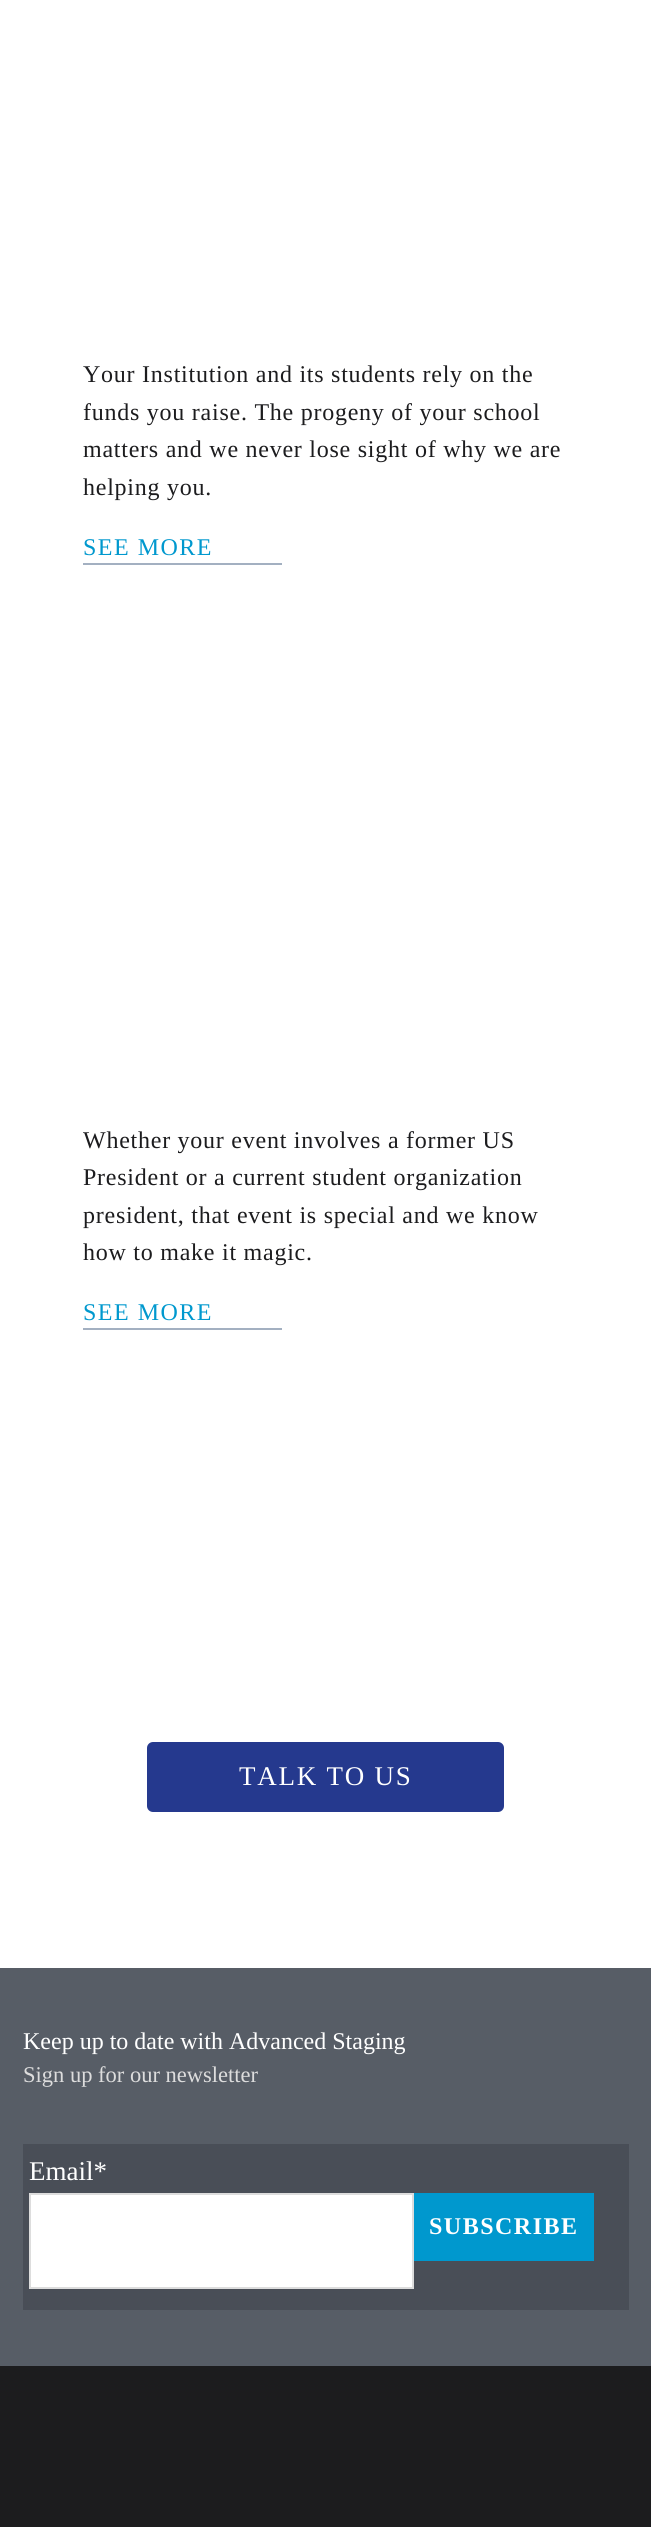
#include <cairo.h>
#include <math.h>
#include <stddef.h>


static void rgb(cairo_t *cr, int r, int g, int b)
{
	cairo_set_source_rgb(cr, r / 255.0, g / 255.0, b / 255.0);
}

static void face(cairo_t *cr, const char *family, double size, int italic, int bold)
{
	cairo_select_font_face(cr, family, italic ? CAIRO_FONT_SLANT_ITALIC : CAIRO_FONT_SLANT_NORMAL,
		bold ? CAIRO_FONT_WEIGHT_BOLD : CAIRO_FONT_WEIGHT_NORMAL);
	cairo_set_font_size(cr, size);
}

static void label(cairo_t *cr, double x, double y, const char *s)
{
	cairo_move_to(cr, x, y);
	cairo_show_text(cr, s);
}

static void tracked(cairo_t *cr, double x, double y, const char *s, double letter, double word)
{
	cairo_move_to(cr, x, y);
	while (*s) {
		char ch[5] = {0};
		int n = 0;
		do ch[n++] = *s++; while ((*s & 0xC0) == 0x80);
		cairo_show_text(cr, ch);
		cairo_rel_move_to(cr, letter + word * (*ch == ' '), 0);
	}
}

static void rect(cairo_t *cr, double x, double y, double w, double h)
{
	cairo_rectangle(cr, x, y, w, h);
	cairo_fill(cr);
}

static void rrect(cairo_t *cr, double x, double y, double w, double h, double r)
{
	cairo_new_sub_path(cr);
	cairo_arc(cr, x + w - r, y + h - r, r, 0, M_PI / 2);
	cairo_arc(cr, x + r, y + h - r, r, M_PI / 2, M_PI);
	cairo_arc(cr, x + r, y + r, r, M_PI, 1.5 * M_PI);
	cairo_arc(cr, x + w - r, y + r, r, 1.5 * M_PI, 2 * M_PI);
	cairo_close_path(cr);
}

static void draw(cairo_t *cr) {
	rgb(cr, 255, 255, 255);
	cairo_paint(cr);
	face(cr, "Liberation Serif", 24, 0, 0);
	rgb(cr, 28, 28, 30);
	tracked(cr, 83, 382, "Your Institution and its students rely on the", 0.75, 0);
	tracked(cr, 83, 420, "funds you raise. The progeny of your school", 0.75, 0);
	tracked(cr, 83, 457, "matters and we never lose sight of why we are", 0.75, 0);
	tracked(cr, 83, 495, "helping you.", 0.75, 0);
	rgb(cr, 0, 152, 206);
	tracked(cr, 83, 555, "SEE MORE", 1.5, 0);
	rgb(cr, 163, 176, 193);
	rect(cr, 83, 563, 199, 2);
	rgb(cr, 28, 28, 30);
	tracked(cr, 83, 1148, "Whether your event involves a former US", 0.75, 0);
	tracked(cr, 83, 1185, "President or a current student organization", 0.75, 0);
	tracked(cr, 83, 1223, "president, that event is special and we know", 0.75, 0);
	tracked(cr, 83, 1260, "how to make it magic.", 0.75, 0);
	rgb(cr, 0, 152, 206);
	tracked(cr, 83, 1320, "SEE MORE", 1.5, 0);
	rgb(cr, 163, 176, 193);
	rect(cr, 83, 1328, 199, 2);
	rgb(cr, 37, 57, 142);
	rrect(cr, 147, 1742, 357, 70, 6);
	cairo_fill(cr);
	face(cr, "Liberation Serif", 27, 0, 0);
	rgb(cr, 255, 255, 255);
	tracked(cr, 239, 1785, "TALK TO US", 1.75, 0);
	rgb(cr, 87, 93, 102);
	rect(cr, 0, 1968, 651, 398);
	face(cr, "Liberation Serif", 24, 0, 0);
	rgb(cr, 255, 255, 255);
	label(cr, 23, 2049, "Keep up to date with Advanced Staging");
	face(cr, "Liberation Serif", 22.5, 0, 0);
	rgb(cr, 221, 221, 221);
	label(cr, 23, 2082, "Sign up for our newsletter");
	rgb(cr, 73, 78, 87);
	rect(cr, 23, 2144, 606, 166);
	face(cr, "Liberation Serif", 27, 0, 0);
	rgb(cr, 255, 255, 255);
	label(cr, 29, 2180, "Email*");
	cairo_rectangle(cr, 30, 2194, 383, 94);
	cairo_fill_preserve(cr);
	rgb(cr, 221, 221, 221);
	cairo_stroke(cr);
	rgb(cr, 0, 152, 206);
	rect(cr, 414, 2193, 180, 68);
	face(cr, "Liberation Serif", 24, 0, 1);
	rgb(cr, 255, 255, 255);
	tracked(cr, 429, 2234, "SUBSCRIBE", 1.5, 0);
	rgb(cr, 28, 28, 30);
	rect(cr, 0, 2366, 651, 161);
}

int main(void) {
	cairo_surface_t *surface = cairo_image_surface_create(CAIRO_FORMAT_RGB24, 651, 2527);
	cairo_t *cr = cairo_create(surface);
	cairo_font_options_t *options = cairo_font_options_create();
	cairo_font_options_set_hint_metrics(options, CAIRO_HINT_METRICS_OFF);
	cairo_font_options_set_hint_style(options, CAIRO_HINT_STYLE_NONE);
	cairo_set_font_options(cr, options);
	cairo_set_miter_limit(cr, 4);
	draw(cr);
	cairo_surface_write_to_png(surface, "render.png");
	cairo_font_options_destroy(options);
	cairo_destroy(cr);
	cairo_surface_destroy(surface);
	return 0;
}
